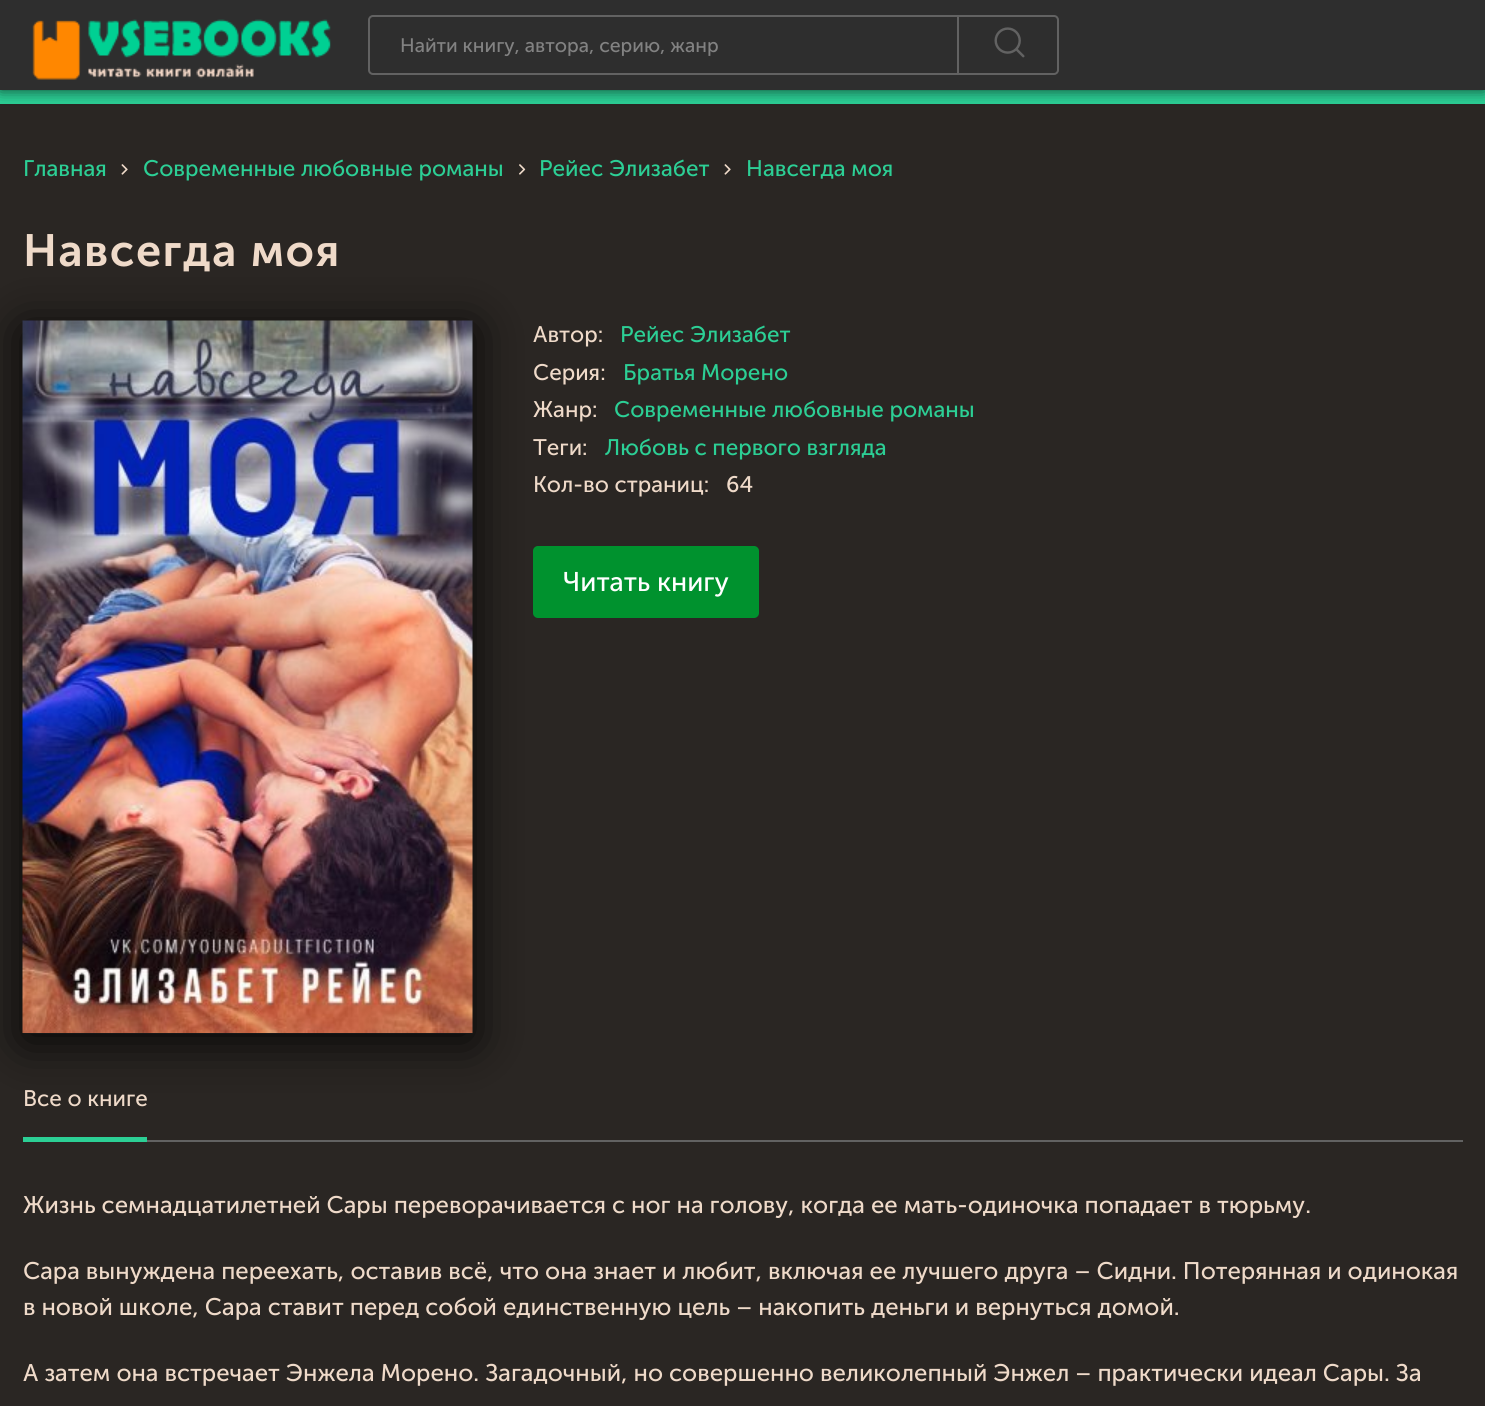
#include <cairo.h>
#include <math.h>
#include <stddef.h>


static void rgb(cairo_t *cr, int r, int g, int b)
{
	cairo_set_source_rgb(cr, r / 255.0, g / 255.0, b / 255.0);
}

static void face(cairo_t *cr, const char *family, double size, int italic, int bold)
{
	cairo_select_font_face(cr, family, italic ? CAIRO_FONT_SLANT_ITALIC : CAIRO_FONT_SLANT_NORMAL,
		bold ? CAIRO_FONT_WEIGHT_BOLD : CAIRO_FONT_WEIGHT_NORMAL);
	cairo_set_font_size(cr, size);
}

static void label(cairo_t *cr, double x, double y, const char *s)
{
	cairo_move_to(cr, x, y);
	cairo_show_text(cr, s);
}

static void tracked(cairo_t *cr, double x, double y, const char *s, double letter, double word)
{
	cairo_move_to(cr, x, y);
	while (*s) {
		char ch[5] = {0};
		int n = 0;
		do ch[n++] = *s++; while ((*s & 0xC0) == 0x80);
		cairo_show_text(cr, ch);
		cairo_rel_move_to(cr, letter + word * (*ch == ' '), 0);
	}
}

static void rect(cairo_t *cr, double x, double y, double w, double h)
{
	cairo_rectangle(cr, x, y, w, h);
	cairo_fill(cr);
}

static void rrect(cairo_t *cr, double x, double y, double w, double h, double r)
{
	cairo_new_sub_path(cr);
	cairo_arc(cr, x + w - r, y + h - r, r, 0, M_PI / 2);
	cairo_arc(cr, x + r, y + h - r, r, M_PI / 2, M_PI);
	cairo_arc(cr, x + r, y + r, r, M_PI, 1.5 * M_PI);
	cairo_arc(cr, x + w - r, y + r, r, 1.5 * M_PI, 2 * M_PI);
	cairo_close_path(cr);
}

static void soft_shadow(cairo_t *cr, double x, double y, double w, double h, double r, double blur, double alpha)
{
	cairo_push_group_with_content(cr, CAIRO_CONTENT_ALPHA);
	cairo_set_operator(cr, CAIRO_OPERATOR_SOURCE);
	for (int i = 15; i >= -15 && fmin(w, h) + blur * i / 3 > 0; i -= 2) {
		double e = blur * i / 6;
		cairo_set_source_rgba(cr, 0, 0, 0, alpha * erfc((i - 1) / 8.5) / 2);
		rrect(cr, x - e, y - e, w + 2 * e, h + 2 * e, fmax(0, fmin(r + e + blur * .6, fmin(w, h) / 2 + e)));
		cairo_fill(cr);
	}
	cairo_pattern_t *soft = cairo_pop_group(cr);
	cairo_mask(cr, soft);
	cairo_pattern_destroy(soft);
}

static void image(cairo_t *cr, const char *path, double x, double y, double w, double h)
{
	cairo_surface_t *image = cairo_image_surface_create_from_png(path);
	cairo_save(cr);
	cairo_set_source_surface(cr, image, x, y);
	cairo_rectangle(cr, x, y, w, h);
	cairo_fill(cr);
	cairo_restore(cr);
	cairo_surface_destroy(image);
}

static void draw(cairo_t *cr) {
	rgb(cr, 42, 38, 35);
	cairo_paint(cr);
	rgb(cr, 44, 207, 149);
	rect(cr, 0, 90, 1485, 14);
	rgb(cr, 0, 0, 0);
	soft_shadow(cr, 0, 0, 1485, 90, 0, 7.5, 0.7);
	rgb(cr, 46, 46, 46);
	rect(cr, 0, 0, 1485, 90);
	image(cr, "image0.png", 32, 19, 299, 61);
	rrect(cr, 369, 16, 689, 58, 4);
	rgb(cr, 98, 98, 98);
	cairo_stroke(cr);
	face(cr, "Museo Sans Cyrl", 19.5, 0, 0);
	rgb(cr, 130, 130, 130);
	label(cr, 400, 52, "Найти книгу, автора, серию, жанр");
	rgb(cr, 98, 98, 98);
	rect(cr, 957, 15, 2, 60);
	image(cr, "image1.png", 994, 27, 31, 31);
	face(cr, "Museo Sans Cyrl", 22.5, 0, 0);
	rgb(cr, 44, 207, 149);
	label(cr, 23, 176, "Главная");
	image(cr, "image2.png", 121, 164, 7, 11);
	label(cr, 143, 176, "Современные любовные романы");
	image(cr, "image3.png", 519, 164, 7, 11);
	label(cr, 539, 176, "Рейес Элизабет");
	image(cr, "image2.png", 724, 164, 7, 11);
	label(cr, 746, 176, "Навсегда моя");
	face(cr, "Museo Sans Cyrl SemiBold", 45, 0, 0);
	rgb(cr, 239, 218, 201);
	tracked(cr, 23, 266, "Навсегда моя", 1.5, 0);
	rgb(cr, 0, 0, 0);
	soft_shadow(cr, 23, 329, 450, 712, 0, 24, 0.9);
	rgb(cr, 24, 24, 24);
	rect(cr, 23, 321, 450, 713);
	image(cr, "image4.png", 22, 320, 451, 713);
	face(cr, "Museo Sans Cyrl", 22.5, 0, 0);
	rgb(cr, 239, 218, 201);
	label(cr, 533, 342, "Автор:");
	rgb(cr, 44, 207, 149);
	label(cr, 620, 342, "Рейес Элизабет");
	rgb(cr, 239, 218, 201);
	label(cr, 533, 380, "Серия:");
	rgb(cr, 44, 207, 149);
	label(cr, 623, 380, "Братья Морено");
	rgb(cr, 239, 218, 201);
	label(cr, 533, 417, "Жанр:");
	rgb(cr, 44, 207, 149);
	label(cr, 614, 417, "Современные любовные романы");
	rgb(cr, 239, 218, 201);
	label(cr, 533, 455, "Теги:");
	rgb(cr, 44, 207, 149);
	label(cr, 605, 455, "Любовь с первого взгляда");
	rgb(cr, 239, 218, 201);
	label(cr, 533, 492, "Кол-во страниц:");
	label(cr, 726, 492, "64");
	rgb(cr, 0, 146, 46);
	rrect(cr, 533, 546, 226, 72, 5);
	cairo_fill(cr);
	face(cr, "Museo Sans Cyrl", 27, 0, 0);
	rgb(cr, 255, 255, 255);
	label(cr, 563, 591, "Читать книгу");
	face(cr, "Museo Sans Cyrl", 22.5, 0, 0);
	rgb(cr, 239, 218, 201);
	label(cr, 23, 1106, "Все о книге");
	rgb(cr, 44, 207, 149);
	rect(cr, 23, 1137, 124, 5);
	rgb(cr, 98, 98, 98);
	rect(cr, 147, 1140, 1316, 2);
	face(cr, "Museo Sans Cyrl", 24, 0, 0);
	rgb(cr, 239, 218, 201);
	label(cr, 23, 1213, "Жизнь семнадцатилетней Сары переворачивается с ног на голову, когда ее мать-одиночка попадает в тюрьму.");
	label(cr, 23, 1279, "Сара вынуждена переехать, оставив всё, что она знает и любит, включая ее лучшего друга – Сидни. Потерянная и одинокая");
	label(cr, 23, 1315, "в новой школе, Сара ставит перед собой единственную цель – накопить деньги и вернуться домой.");
	label(cr, 23, 1381, "А затем она встречает Энжела Морено. Загадочный, но совершенно великолепный Энжел – практически идеал Сары. За");
}

int main(void) {
	cairo_surface_t *surface = cairo_image_surface_create(CAIRO_FORMAT_RGB24, 1485, 1406);
	cairo_t *cr = cairo_create(surface);
	cairo_font_options_t *options = cairo_font_options_create();
	cairo_font_options_set_hint_metrics(options, CAIRO_HINT_METRICS_OFF);
	cairo_font_options_set_hint_style(options, CAIRO_HINT_STYLE_NONE);
	cairo_set_font_options(cr, options);
	cairo_set_miter_limit(cr, 4);
	draw(cr);
	cairo_surface_write_to_png(surface, "render.png");
	cairo_font_options_destroy(options);
	cairo_destroy(cr);
	cairo_surface_destroy(surface);
	return 0;
}
